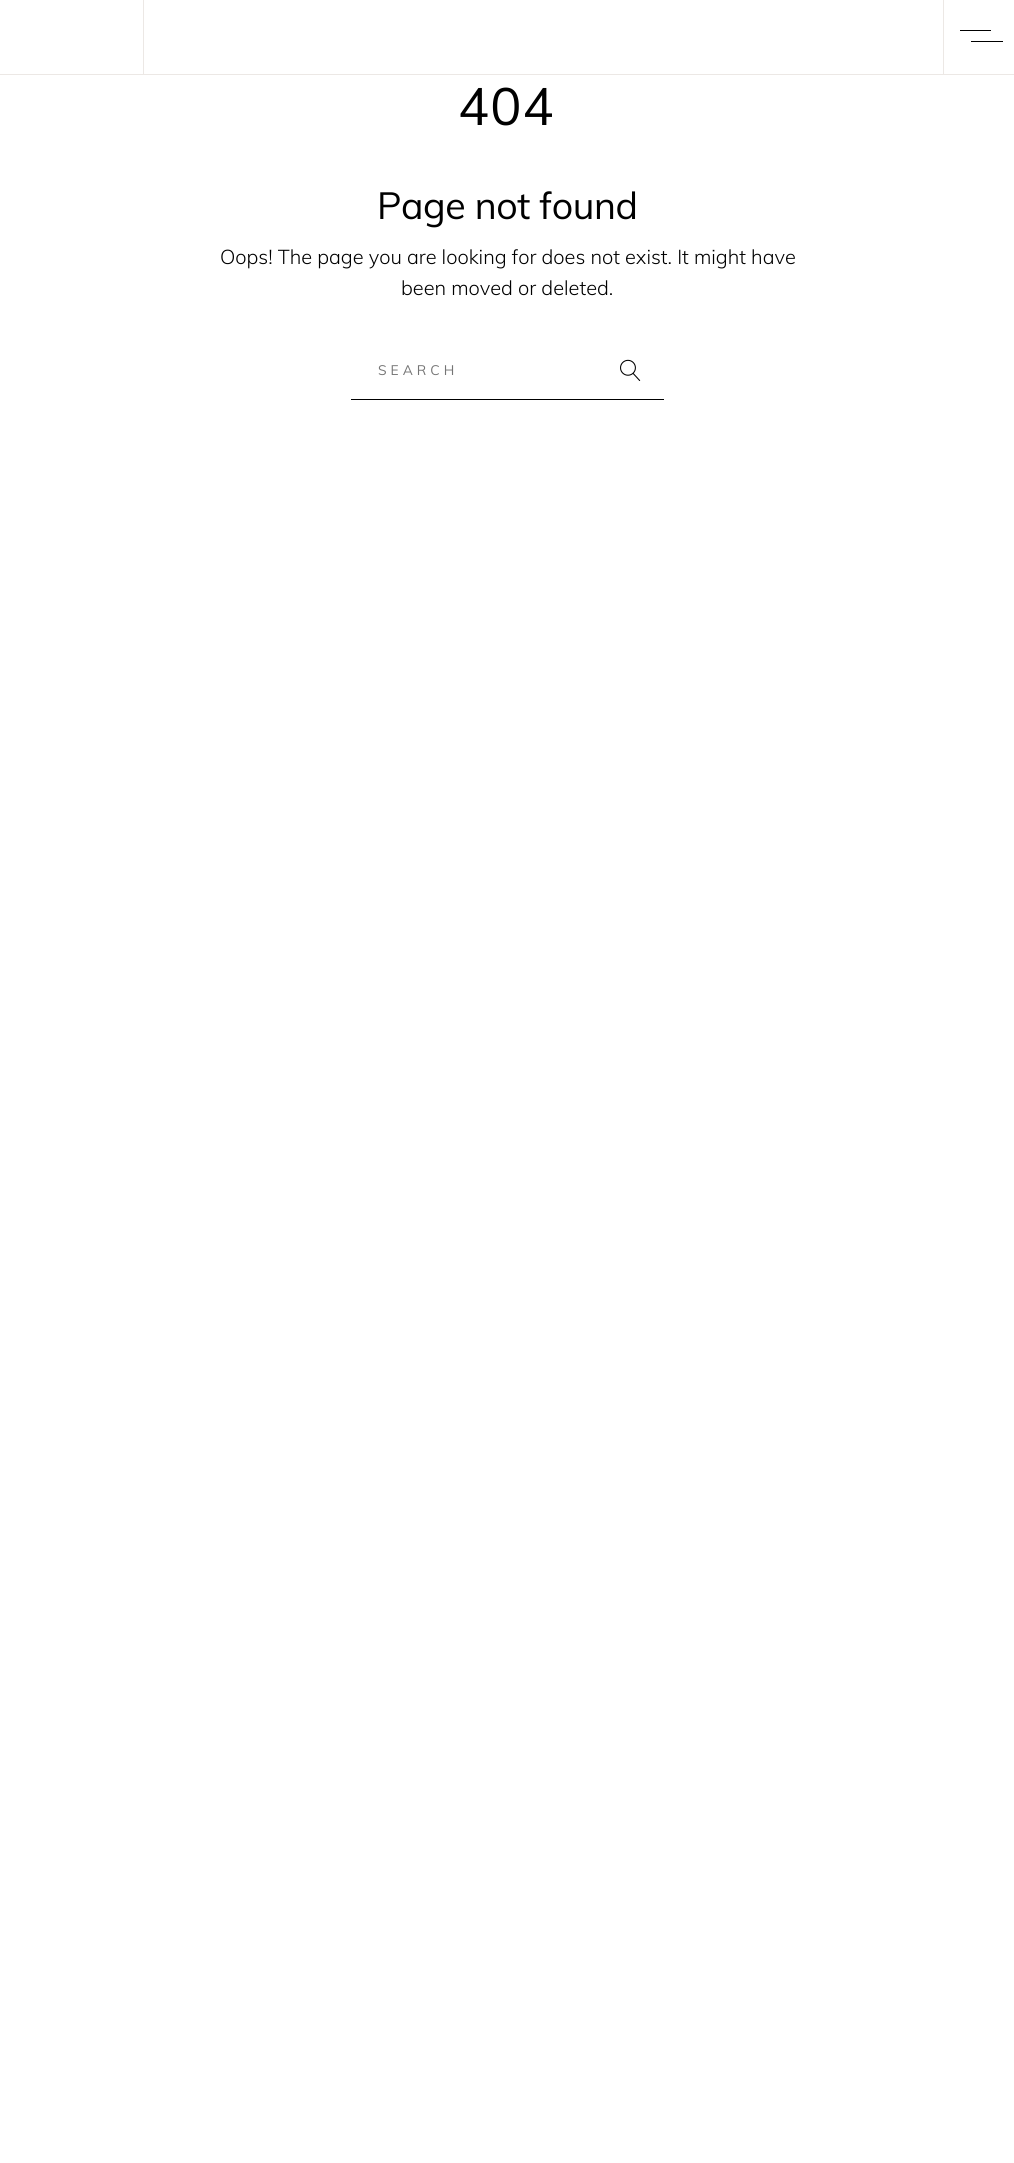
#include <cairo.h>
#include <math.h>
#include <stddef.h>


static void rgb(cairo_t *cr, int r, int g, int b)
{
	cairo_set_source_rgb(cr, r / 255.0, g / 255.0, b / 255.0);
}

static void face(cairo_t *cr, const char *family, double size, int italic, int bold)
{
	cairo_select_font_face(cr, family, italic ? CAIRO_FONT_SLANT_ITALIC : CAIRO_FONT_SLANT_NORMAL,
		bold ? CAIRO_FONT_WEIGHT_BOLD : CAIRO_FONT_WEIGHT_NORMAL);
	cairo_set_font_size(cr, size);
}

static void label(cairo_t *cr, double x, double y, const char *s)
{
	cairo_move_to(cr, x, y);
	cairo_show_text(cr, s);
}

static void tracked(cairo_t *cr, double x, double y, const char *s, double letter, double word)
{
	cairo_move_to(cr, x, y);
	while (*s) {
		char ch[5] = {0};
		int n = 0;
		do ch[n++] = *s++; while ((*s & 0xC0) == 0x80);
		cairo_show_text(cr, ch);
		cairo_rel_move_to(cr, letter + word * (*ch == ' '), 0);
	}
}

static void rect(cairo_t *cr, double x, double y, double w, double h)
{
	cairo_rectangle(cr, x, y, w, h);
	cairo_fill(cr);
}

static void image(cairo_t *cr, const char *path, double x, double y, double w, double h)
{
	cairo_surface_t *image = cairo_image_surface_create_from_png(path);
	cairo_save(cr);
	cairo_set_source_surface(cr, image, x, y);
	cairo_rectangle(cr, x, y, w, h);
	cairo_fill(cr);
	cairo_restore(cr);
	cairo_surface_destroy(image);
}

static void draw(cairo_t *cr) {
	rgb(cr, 255, 255, 255);
	cairo_paint(cr);
	rgb(cr, 236, 232, 229);
	rect(cr, 0, 74, 1014, 1);
	rect(cr, 143, 0, 1, 74);
	rect(cr, 943, 0, 1, 74);
	rgb(cr, 0, 0, 0);
	rect(cr, 960, 30, 31, 1);
	rect(cr, 971, 41, 32, 1);
	face(cr, "Muli", 52, 0, 0);
	tracked(cr, 458, 125, "404", 1, 0);
	face(cr, "Muli", 37.5, 0, 0);
	tracked(cr, 377, 219, "Page not found", -0.4, 0);
	face(cr, "Muli Light", 20, 0, 0);
	label(cr, 220, 264, "Oops! The page you are looking for does not exist. It might have");
	label(cr, 401, 295, "been moved or deleted.");
	rect(cr, 351, 399, 313, 1);
	face(cr, "Muli", 13.75, 0, 0);
	rgb(cr, 117, 117, 117);
	tracked(cr, 378, 375, "SEARCH", 4, 0);
	image(cr, "image0.png", 620, 359, 21, 22);
}

int main(void) {
	cairo_surface_t *surface = cairo_image_surface_create(CAIRO_FORMAT_RGB24, 1014, 2163);
	cairo_t *cr = cairo_create(surface);
	cairo_font_options_t *options = cairo_font_options_create();
	cairo_font_options_set_hint_metrics(options, CAIRO_HINT_METRICS_OFF);
	cairo_font_options_set_hint_style(options, CAIRO_HINT_STYLE_NONE);
	cairo_set_font_options(cr, options);
	cairo_set_miter_limit(cr, 4);
	draw(cr);
	cairo_surface_write_to_png(surface, "render.png");
	cairo_font_options_destroy(options);
	cairo_destroy(cr);
	cairo_surface_destroy(surface);
	return 0;
}
